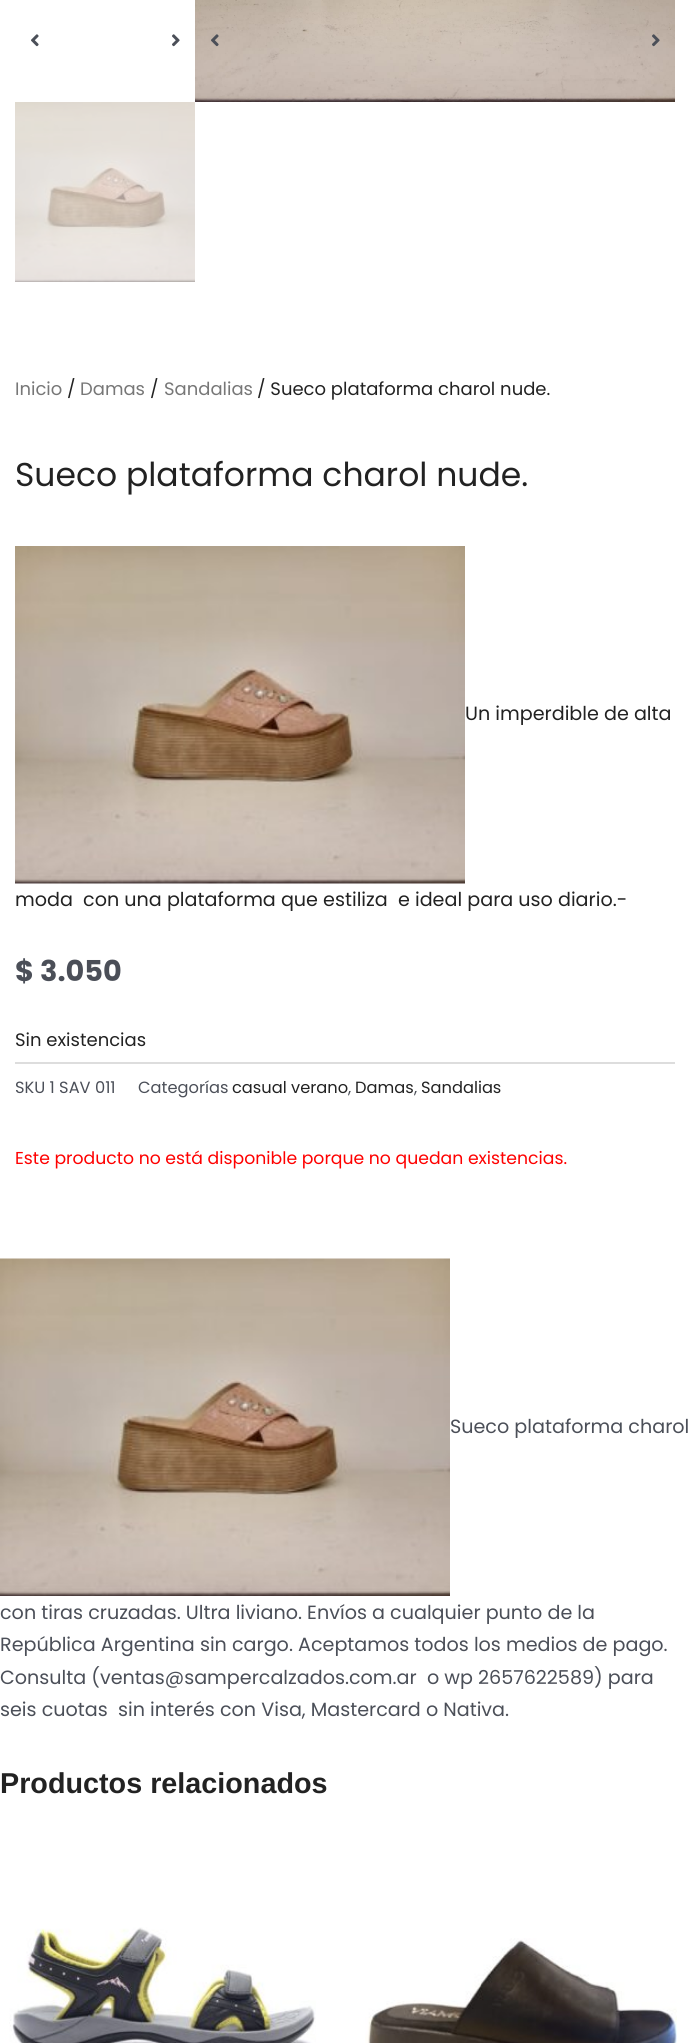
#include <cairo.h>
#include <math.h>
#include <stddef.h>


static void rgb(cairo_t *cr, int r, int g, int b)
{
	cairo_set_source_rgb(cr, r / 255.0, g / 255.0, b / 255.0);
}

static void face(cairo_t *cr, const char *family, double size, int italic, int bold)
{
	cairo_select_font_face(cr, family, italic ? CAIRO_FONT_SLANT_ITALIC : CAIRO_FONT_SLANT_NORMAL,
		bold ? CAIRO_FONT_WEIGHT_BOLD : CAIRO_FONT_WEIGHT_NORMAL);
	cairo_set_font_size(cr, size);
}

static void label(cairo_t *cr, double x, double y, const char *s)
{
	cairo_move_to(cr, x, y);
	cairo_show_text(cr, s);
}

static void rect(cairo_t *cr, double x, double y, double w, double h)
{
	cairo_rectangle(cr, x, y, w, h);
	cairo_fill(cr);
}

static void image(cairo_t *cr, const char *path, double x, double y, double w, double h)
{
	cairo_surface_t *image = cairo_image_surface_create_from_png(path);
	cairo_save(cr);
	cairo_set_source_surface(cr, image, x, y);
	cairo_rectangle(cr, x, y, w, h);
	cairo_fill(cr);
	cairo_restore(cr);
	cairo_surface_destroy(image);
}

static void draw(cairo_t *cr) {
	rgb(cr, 255, 255, 255);
	cairo_paint(cr);
	image(cr, "image0.png", 31, 34, 8, 13);
	image(cr, "image1.png", 172, 34, 8, 13);
	image(cr, "image2.png", 15, 102, 180, 180);
	image(cr, "image3.png", 195, 0, 480, 102);
	image(cr, "image4.png", 211, 34, 8, 13);
	image(cr, "image5.png", 652, 34, 8, 13);
	face(cr, "Poppins", 18, 0, 0);
	rgb(cr, 119, 119, 119);
	label(cr, 15, 395, "Inicio");
	rgb(cr, 34, 34, 34);
	label(cr, 67, 395, "/");
	rgb(cr, 119, 119, 119);
	label(cr, 80, 395, "Damas");
	rgb(cr, 34, 34, 34);
	label(cr, 150, 395, "/");
	rgb(cr, 119, 119, 119);
	label(cr, 164, 395, "Sandalias");
	rgb(cr, 34, 34, 34);
	label(cr, 257, 395, "/ Sueco plataforma charol nude.");
	face(cr, "Poppins", 33, 0, 0);
	label(cr, 15, 486, "Sueco plataforma charol nude.");
	image(cr, "image6.png", 15, 546, 450, 338);
	face(cr, "Poppins", 19.15, 0, 0);
	label(cr, 465, 720, "Un imperdible de alta");
	label(cr, 15, 906, "moda  con una plataforma que estiliza  e ideal para uso diario.-");
	face(cr, "Poppins", 28.75, 0, 1);
	rgb(cr, 75, 79, 88);
	label(cr, 15, 981, "$ 3.050");
	face(cr, "Poppins", 18, 0, 0);
	rgb(cr, 34, 34, 34);
	label(cr, 15, 1046, "Sin existencias");
	rgb(cr, 221, 221, 221);
	rect(cr, 15, 1062, 660, 2);
	face(cr, "Poppins", 16.25, 0, 0);
	rgb(cr, 75, 79, 88);
	label(cr, 15, 1093, "SKU 1 SAV 011");
	label(cr, 138, 1093, "Categorías");
	rgb(cr, 34, 34, 34);
	label(cr, 232, 1093, "casual verano");
	rgb(cr, 75, 79, 88);
	label(cr, 348, 1093, ",");
	rgb(cr, 34, 34, 34);
	label(cr, 355, 1093, "Damas");
	rgb(cr, 75, 79, 88);
	label(cr, 414, 1093, ",");
	rgb(cr, 34, 34, 34);
	label(cr, 421, 1093, "Sandalias");
	face(cr, "Poppins", 17.25, 0, 0);
	rgb(cr, 255, 0, 0);
	label(cr, 15, 1164, "Este producto no está disponible porque no quedan existencias.");
	image(cr, "image7.png", 0, 1258, 450, 338);
	face(cr, "Poppins", 19.15, 0, 0);
	rgb(cr, 75, 79, 88);
	label(cr, 450, 1433, "Sueco plataforma charol");
	label(cr, 0, 1619, "con tiras cruzadas. Ultra liviano. Envíos a cualquier punto de la");
	label(cr, 0, 1651, "República Argentina sin cargo. Aceptamos todos los medios de pago.");
	label(cr, 0, 1684, "Consulta (ventas@sampercalzados.com.ar  o wp 2657622589) para");
	label(cr, 0, 1716, "seis cuotas  sin interés con Visa, Mastercard o Nativa.");
	face(cr, "Liberation Sans", 28.75, 0, 1);
	rgb(cr, 34, 34, 34);
	label(cr, 0, 1793, "Productos relacionados");
	image(cr, "image8.png", 9, 1927, 307, 116);
	image(cr, "image9.png", 365, 1938, 312, 105);
}

int main(void) {
	cairo_surface_t *surface = cairo_image_surface_create(CAIRO_FORMAT_RGB24, 690, 2043);
	cairo_t *cr = cairo_create(surface);
	cairo_font_options_t *options = cairo_font_options_create();
	cairo_font_options_set_hint_metrics(options, CAIRO_HINT_METRICS_OFF);
	cairo_font_options_set_hint_style(options, CAIRO_HINT_STYLE_NONE);
	cairo_set_font_options(cr, options);
	cairo_set_miter_limit(cr, 4);
	draw(cr);
	cairo_surface_write_to_png(surface, "render.png");
	cairo_font_options_destroy(options);
	cairo_destroy(cr);
	cairo_surface_destroy(surface);
	return 0;
}
